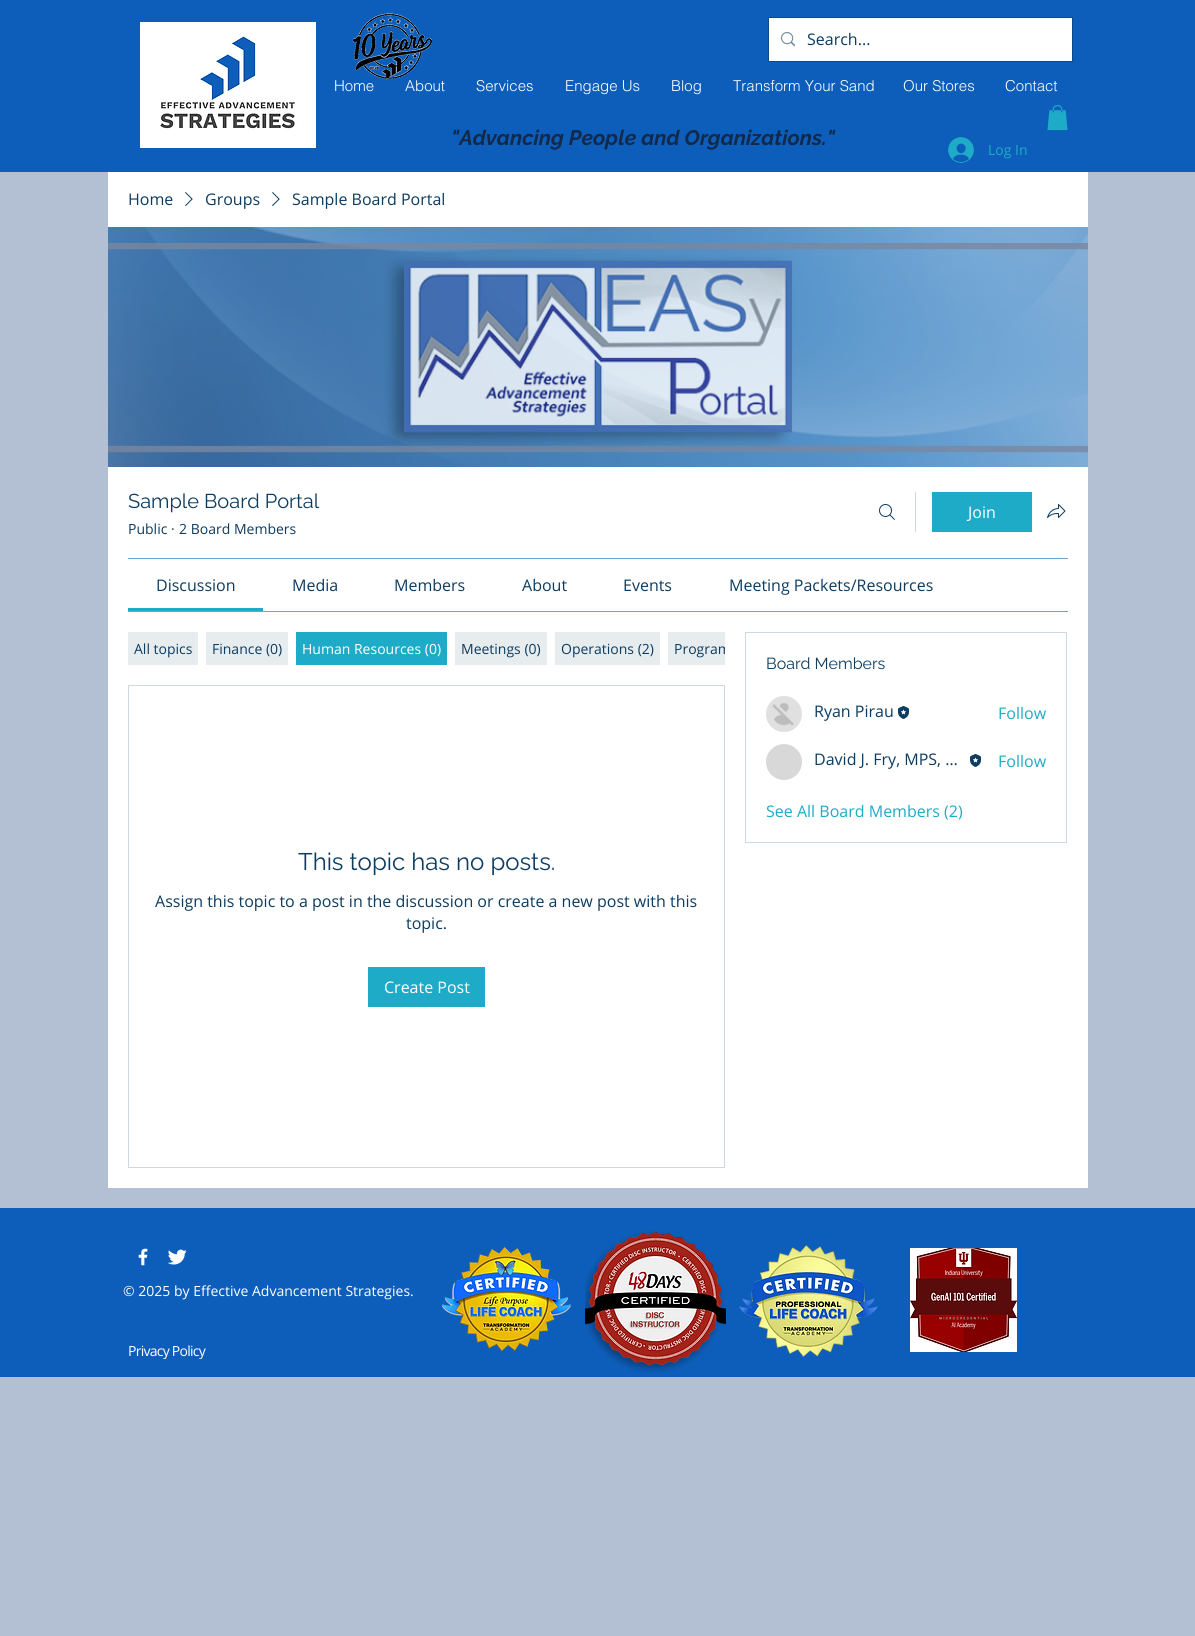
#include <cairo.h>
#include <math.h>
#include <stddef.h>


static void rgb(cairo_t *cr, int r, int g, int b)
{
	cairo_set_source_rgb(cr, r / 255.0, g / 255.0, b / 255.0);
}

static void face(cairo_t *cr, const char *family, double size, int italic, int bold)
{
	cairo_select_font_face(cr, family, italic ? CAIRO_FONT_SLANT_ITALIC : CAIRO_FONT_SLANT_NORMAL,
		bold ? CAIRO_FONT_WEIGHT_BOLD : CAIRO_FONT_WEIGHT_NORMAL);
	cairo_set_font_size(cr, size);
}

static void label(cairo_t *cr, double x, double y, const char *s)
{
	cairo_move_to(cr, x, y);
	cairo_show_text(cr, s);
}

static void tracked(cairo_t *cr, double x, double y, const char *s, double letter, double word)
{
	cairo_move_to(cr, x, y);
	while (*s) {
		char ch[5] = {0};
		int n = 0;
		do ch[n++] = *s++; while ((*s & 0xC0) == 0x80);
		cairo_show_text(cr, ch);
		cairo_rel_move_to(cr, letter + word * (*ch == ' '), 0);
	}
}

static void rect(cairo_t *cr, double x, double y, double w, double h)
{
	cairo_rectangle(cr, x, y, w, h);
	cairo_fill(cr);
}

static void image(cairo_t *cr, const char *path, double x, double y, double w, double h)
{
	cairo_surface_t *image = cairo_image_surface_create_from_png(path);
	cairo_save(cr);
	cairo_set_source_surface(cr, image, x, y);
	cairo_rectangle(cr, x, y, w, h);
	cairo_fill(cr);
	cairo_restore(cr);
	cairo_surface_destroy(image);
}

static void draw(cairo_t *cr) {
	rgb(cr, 179, 192, 211);
	cairo_paint(cr);
	rgb(cr, 13, 94, 186);
	rect(cr, 0, 0, 1195, 172);
	image(cr, "image0.png", 140, 22, 176, 126);
	image(cr, "image1.png", 352, 13, 80, 67);
	cairo_rectangle(cr, 768.5, 17.5, 304, 44);
	rgb(cr, 12, 74, 132);
	cairo_set_line_width(cr, 1);
	cairo_stroke(cr);
	rgb(cr, 255, 255, 255);
	rect(cr, 769, 18, 303, 43);
	image(cr, "image2.png", 781, 32, 14, 15);
	face(cr, "Open Sans", 16, 0, 0);
	rgb(cr, 12, 60, 96);
	label(cr, 807, 45, "Search...");
	face(cr, "helvetica Light", 15, 0, 0);
	rgb(cr, 255, 255, 255);
	label(cr, 334, 91, "Home");
	label(cr, 405, 91, "About");
	label(cr, 476, 91, "Services");
	label(cr, 565, 91, "Engage Us");
	label(cr, 671, 91, "Blog");
	label(cr, 733, 91, "Transform Your Sand");
	label(cr, 903, 91, "Our Stores");
	label(cr, 1005, 91, "Contact");
	image(cr, "image3.png", 1047, 105, 21, 26);
	face(cr, "Raleway", 21, 1, 1);
	rgb(cr, 17, 42, 75);
	label(cr, 451, 145, "\"Advancing People and Organizations.\"");
	image(cr, "image4.png", 948, 137, 26, 26);
	face(cr, "Open Sans", 14, 0, 0);
	rgb(cr, 30, 171, 199);
	label(cr, 988, 155, "Log In");
	rgb(cr, 255, 255, 255);
	rect(cr, 108, 172, 980, 1016);
	face(cr, "Open Sans", 16, 0, 0);
	rgb(cr, 12, 60, 96);
	label(cr, 128, 205, "Home");
	image(cr, "image5.png", 185, 192, 8, 14);
	label(cr, 205, 205, "Groups");
	image(cr, "image5.png", 272, 192, 8, 14);
	label(cr, 292, 205, "Sample Board Portal");
	image(cr, "image6.png", 108, 227, 980, 240);
	face(cr, "Raleway", 20, 0, 0);
	label(cr, 128, 508, "Sample Board Portal");
	face(cr, "Open Sans", 14, 0, 0);
	label(cr, 128, 534, "Public");
	label(cr, 171, 534, "·");
	label(cr, 179, 534, "2 Board Members");
	image(cr, "image7.png", 879, 504, 16, 16);
	rgb(cr, 206, 216, 223);
	rect(cr, 915, 492, 1, 40);
	rgb(cr, 30, 171, 199);
	rect(cr, 932, 492, 100, 40);
	face(cr, "Open Sans", 16, 0, 0);
	rgb(cr, 255, 255, 255);
	label(cr, 968, 518, "Join");
	image(cr, "image8.png", 1047, 504, 19, 14);
	rgb(cr, 110, 164, 202);
	rect(cr, 128, 558, 940, 1);
	rect(cr, 128, 611, 940, 1);
	rgb(cr, 30, 171, 199);
	rect(cr, 128, 608, 135, 3);
	rgb(cr, 12, 60, 96);
	label(cr, 156, 591, "Discussion");
	label(cr, 292, 591, "Media");
	label(cr, 394, 591, "Members");
	label(cr, 522, 591, "About");
	label(cr, 623, 591, "Events");
	label(cr, 729, 591, "Meeting Packets/Resources");
	rgb(cr, 231, 236, 239);
	rect(cr, 128, 632, 70, 33);
	face(cr, "Open Sans", 14, 0, 0);
	rgb(cr, 12, 60, 96);
	label(cr, 134, 654, "All topics");
	rgb(cr, 231, 236, 239);
	rect(cr, 206, 632, 82, 33);
	rgb(cr, 12, 60, 96);
	label(cr, 212, 654, "Finance (0)");
	rgb(cr, 30, 171, 199);
	rect(cr, 296, 632, 151, 33);
	rgb(cr, 255, 255, 255);
	label(cr, 302, 654, "Human Resources (0)");
	rgb(cr, 231, 236, 239);
	rect(cr, 455, 632, 92, 33);
	rgb(cr, 12, 60, 96);
	label(cr, 461, 654, "Meetings (0)");
	rgb(cr, 231, 236, 239);
	rect(cr, 555, 632, 105, 33);
	rgb(cr, 12, 60, 96);
	label(cr, 561, 654, "Operations (2)");
	rgb(cr, 231, 236, 239);
	rect(cr, 668, 632, 57, 33);
	cairo_save(cr);
	cairo_rectangle(cr, 128, 632, 597, 33);
	cairo_clip(cr);
	rgb(cr, 12, 60, 96);
	label(cr, 674, 654, "Program");
	cairo_restore(cr);
	cairo_rectangle(cr, 128.5, 685.5, 596, 482);
	rgb(cr, 206, 216, 223);
	cairo_stroke(cr);
	face(cr, "Raleway", 24, 0, 0);
	rgb(cr, 12, 60, 96);
	label(cr, 298, 870, "This topic has no posts.");
	face(cr, "Open Sans", 16, 0, 0);
	label(cr, 155, 907, "Assign this topic to a post in the discussion or create a new post with this");
	label(cr, 406, 929, "topic.");
	rgb(cr, 30, 171, 199);
	rect(cr, 368, 967, 117, 40);
	rgb(cr, 255, 255, 255);
	label(cr, 384, 993, "Create Post");
	cairo_rectangle(cr, 745.5, 632.5, 321, 210);
	rgb(cr, 206, 216, 223);
	cairo_stroke(cr);
	face(cr, "Raleway", 16, 0, 0);
	rgb(cr, 12, 60, 96);
	label(cr, 766, 669, "Board Members");
	image(cr, "image9.png", 766, 696, 36, 36);
	face(cr, "Open Sans", 16, 0, 0);
	label(cr, 814, 717, "Ryan Pirau");
	image(cr, "image10.png", 898, 706, 11, 13);
	rgb(cr, 30, 171, 199);
	label(cr, 998, 719, "Follow");
	rgb(cr, 216, 216, 216);
	cairo_new_path(cr);
	cairo_arc(cr, 784, 762, 18, 0, 2 * M_PI);
	cairo_fill(cr);
	rgb(cr, 12, 60, 96);
	label(cr, 814, 765, "David J. Fry, MPS, …");
	image(cr, "image10.png", 970, 754, 11, 13);
	rgb(cr, 30, 171, 199);
	label(cr, 998, 767, "Follow");
	label(cr, 766, 817, "See All Board Members (2)");
	rgb(cr, 13, 94, 186);
	rect(cr, 0, 1208, 1195, 169);
	image(cr, "image11.png", 138, 1248, 10, 18);
	image(cr, "image12.png", 168, 1249, 19, 16);
	image(cr, "image13.png", 442, 1247, 129, 105);
	image(cr, "image14.png", 585, 1230, 141, 143);
	image(cr, "image15.png", 739, 1245, 139, 112);
	image(cr, "image16.png", 910, 1248, 107, 104);
	face(cr, "Open Sans", 14, 0, 0);
	rgb(cr, 255, 255, 255);
	label(cr, 123, 1296, "© 2025 by Effective Advancement Strategies.");
	cairo_save(cr);
	cairo_rectangle(cr, 128, 1342, 78, 17);
	cairo_clip(cr);
	tracked(cr, 128, 1356, "Privacy Policy", -0.75, 0);
	cairo_restore(cr);
}

int main(void) {
	cairo_surface_t *surface = cairo_image_surface_create(CAIRO_FORMAT_RGB24, 1195, 1636);
	cairo_t *cr = cairo_create(surface);
	cairo_font_options_t *options = cairo_font_options_create();
	cairo_font_options_set_hint_metrics(options, CAIRO_HINT_METRICS_OFF);
	cairo_font_options_set_hint_style(options, CAIRO_HINT_STYLE_NONE);
	cairo_set_font_options(cr, options);
	cairo_set_miter_limit(cr, 4);
	draw(cr);
	cairo_surface_write_to_png(surface, "render.png");
	cairo_font_options_destroy(options);
	cairo_destroy(cr);
	cairo_surface_destroy(surface);
	return 0;
}
